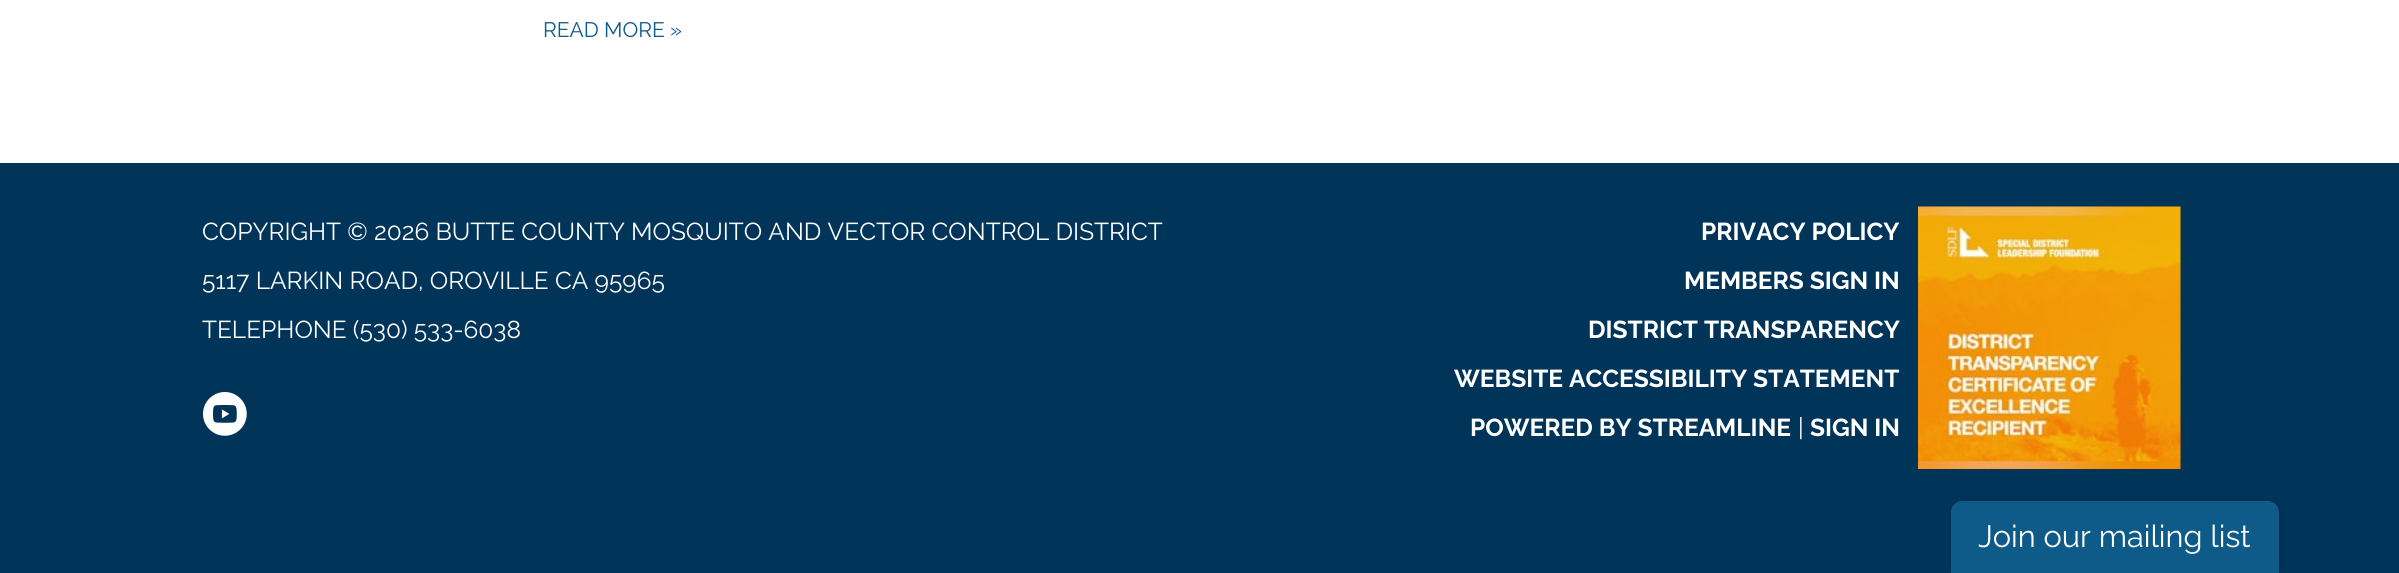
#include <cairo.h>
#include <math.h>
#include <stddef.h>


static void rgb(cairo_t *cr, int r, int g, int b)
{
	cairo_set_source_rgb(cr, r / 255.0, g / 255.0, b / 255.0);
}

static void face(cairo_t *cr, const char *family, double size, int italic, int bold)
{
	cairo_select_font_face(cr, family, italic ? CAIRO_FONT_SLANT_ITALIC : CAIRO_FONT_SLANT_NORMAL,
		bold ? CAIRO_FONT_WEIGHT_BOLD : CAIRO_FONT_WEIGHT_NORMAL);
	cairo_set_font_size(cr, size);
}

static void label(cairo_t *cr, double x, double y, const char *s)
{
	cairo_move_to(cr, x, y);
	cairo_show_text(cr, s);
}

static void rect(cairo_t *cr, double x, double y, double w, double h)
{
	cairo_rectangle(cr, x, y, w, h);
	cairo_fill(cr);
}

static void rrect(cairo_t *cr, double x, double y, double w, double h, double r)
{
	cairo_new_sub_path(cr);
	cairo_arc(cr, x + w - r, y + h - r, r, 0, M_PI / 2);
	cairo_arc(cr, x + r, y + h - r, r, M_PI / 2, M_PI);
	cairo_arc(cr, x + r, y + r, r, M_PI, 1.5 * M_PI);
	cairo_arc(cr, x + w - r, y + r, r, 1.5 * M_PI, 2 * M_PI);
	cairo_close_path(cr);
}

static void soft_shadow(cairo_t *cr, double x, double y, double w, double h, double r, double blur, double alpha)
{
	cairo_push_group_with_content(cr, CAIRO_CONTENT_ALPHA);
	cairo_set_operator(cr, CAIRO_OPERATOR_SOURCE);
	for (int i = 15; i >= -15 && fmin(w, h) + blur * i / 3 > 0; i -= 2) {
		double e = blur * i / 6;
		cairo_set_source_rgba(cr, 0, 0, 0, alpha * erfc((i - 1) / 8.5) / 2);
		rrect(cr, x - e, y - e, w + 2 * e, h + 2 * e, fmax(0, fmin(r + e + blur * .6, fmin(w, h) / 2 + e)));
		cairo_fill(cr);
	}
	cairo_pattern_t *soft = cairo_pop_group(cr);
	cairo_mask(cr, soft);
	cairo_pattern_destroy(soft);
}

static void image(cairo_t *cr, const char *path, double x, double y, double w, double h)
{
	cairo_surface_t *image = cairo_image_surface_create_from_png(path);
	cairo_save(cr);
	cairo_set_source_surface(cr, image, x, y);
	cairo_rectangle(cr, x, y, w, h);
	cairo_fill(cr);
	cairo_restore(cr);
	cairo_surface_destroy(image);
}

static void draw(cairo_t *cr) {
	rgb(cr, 0, 52, 89);
	cairo_paint(cr);
	rgb(cr, 255, 255, 255);
	rect(cr, 0, 0, 2399, 163);
	face(cr, "Raleway", 21, 0, 0);
	rgb(cr, 14, 90, 136);
	label(cr, 543, 37, "READ MORE »");
	face(cr, "Raleway", 24.5, 0, 0);
	rgb(cr, 255, 255, 255);
	label(cr, 202, 240, "COPYRIGHT © 2026 BUTTE COUNTY MOSQUITO AND VECTOR CONTROL DISTRICT");
	label(cr, 202, 289, "5117 LARKIN ROAD, OROVILLE CA 95965");
	label(cr, 202, 338, "TELEPHONE (530) 533-6038");
	image(cr, "image0.png", 203, 392, 44, 44);
	face(cr, "Raleway", 24.5, 0, 1);
	label(cr, 1701, 240, "PRIVACY POLICY");
	label(cr, 1684, 289, "MEMBERS SIGN IN");
	label(cr, 1588, 338, "DISTRICT TRANSPARENCY");
	label(cr, 1454, 387, "WEBSITE ACCESSIBILITY STATEMENT");
	label(cr, 1470, 436, "POWERED BY STREAMLINE");
	face(cr, "Raleway", 24.5, 0, 0);
	label(cr, 1798, 436, "|");
	face(cr, "Raleway", 24.5, 0, 1);
	label(cr, 1810, 436, "SIGN IN");
	image(cr, "image1.png", 1918, 206, 263, 263);
	rgb(cr, 0, 0, 0);
	soft_shadow(cr, 1953, 502, 327, 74, 11, 2.5, 0.3);
	rgb(cr, 14, 90, 136);
	cairo_new_path(cr);
	cairo_move_to(cr, 1962, 501);
	cairo_line_to(cr, 2268, 501);
	cairo_curve_to(cr, 2274, 501, 2279, 506, 2279, 512);
	cairo_line_to(cr, 2279, 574);
	cairo_line_to(cr, 1951, 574);
	cairo_line_to(cr, 1951, 512);
	cairo_curve_to(cr, 1951, 506, 1956, 501, 1962, 501);
	cairo_close_path(cr);
	cairo_fill(cr);
	face(cr, "Raleway", 30.75, 0, 0);
	rgb(cr, 255, 255, 255);
	label(cr, 1978, 547, "Join our mailing list");
}

int main(void) {
	cairo_surface_t *surface = cairo_image_surface_create(CAIRO_FORMAT_RGB24, 2399, 573);
	cairo_t *cr = cairo_create(surface);
	cairo_font_options_t *options = cairo_font_options_create();
	cairo_font_options_set_hint_metrics(options, CAIRO_HINT_METRICS_OFF);
	cairo_font_options_set_hint_style(options, CAIRO_HINT_STYLE_NONE);
	cairo_set_font_options(cr, options);
	cairo_set_miter_limit(cr, 4);
	draw(cr);
	cairo_surface_write_to_png(surface, "render.png");
	cairo_font_options_destroy(options);
	cairo_destroy(cr);
	cairo_surface_destroy(surface);
	return 0;
}
